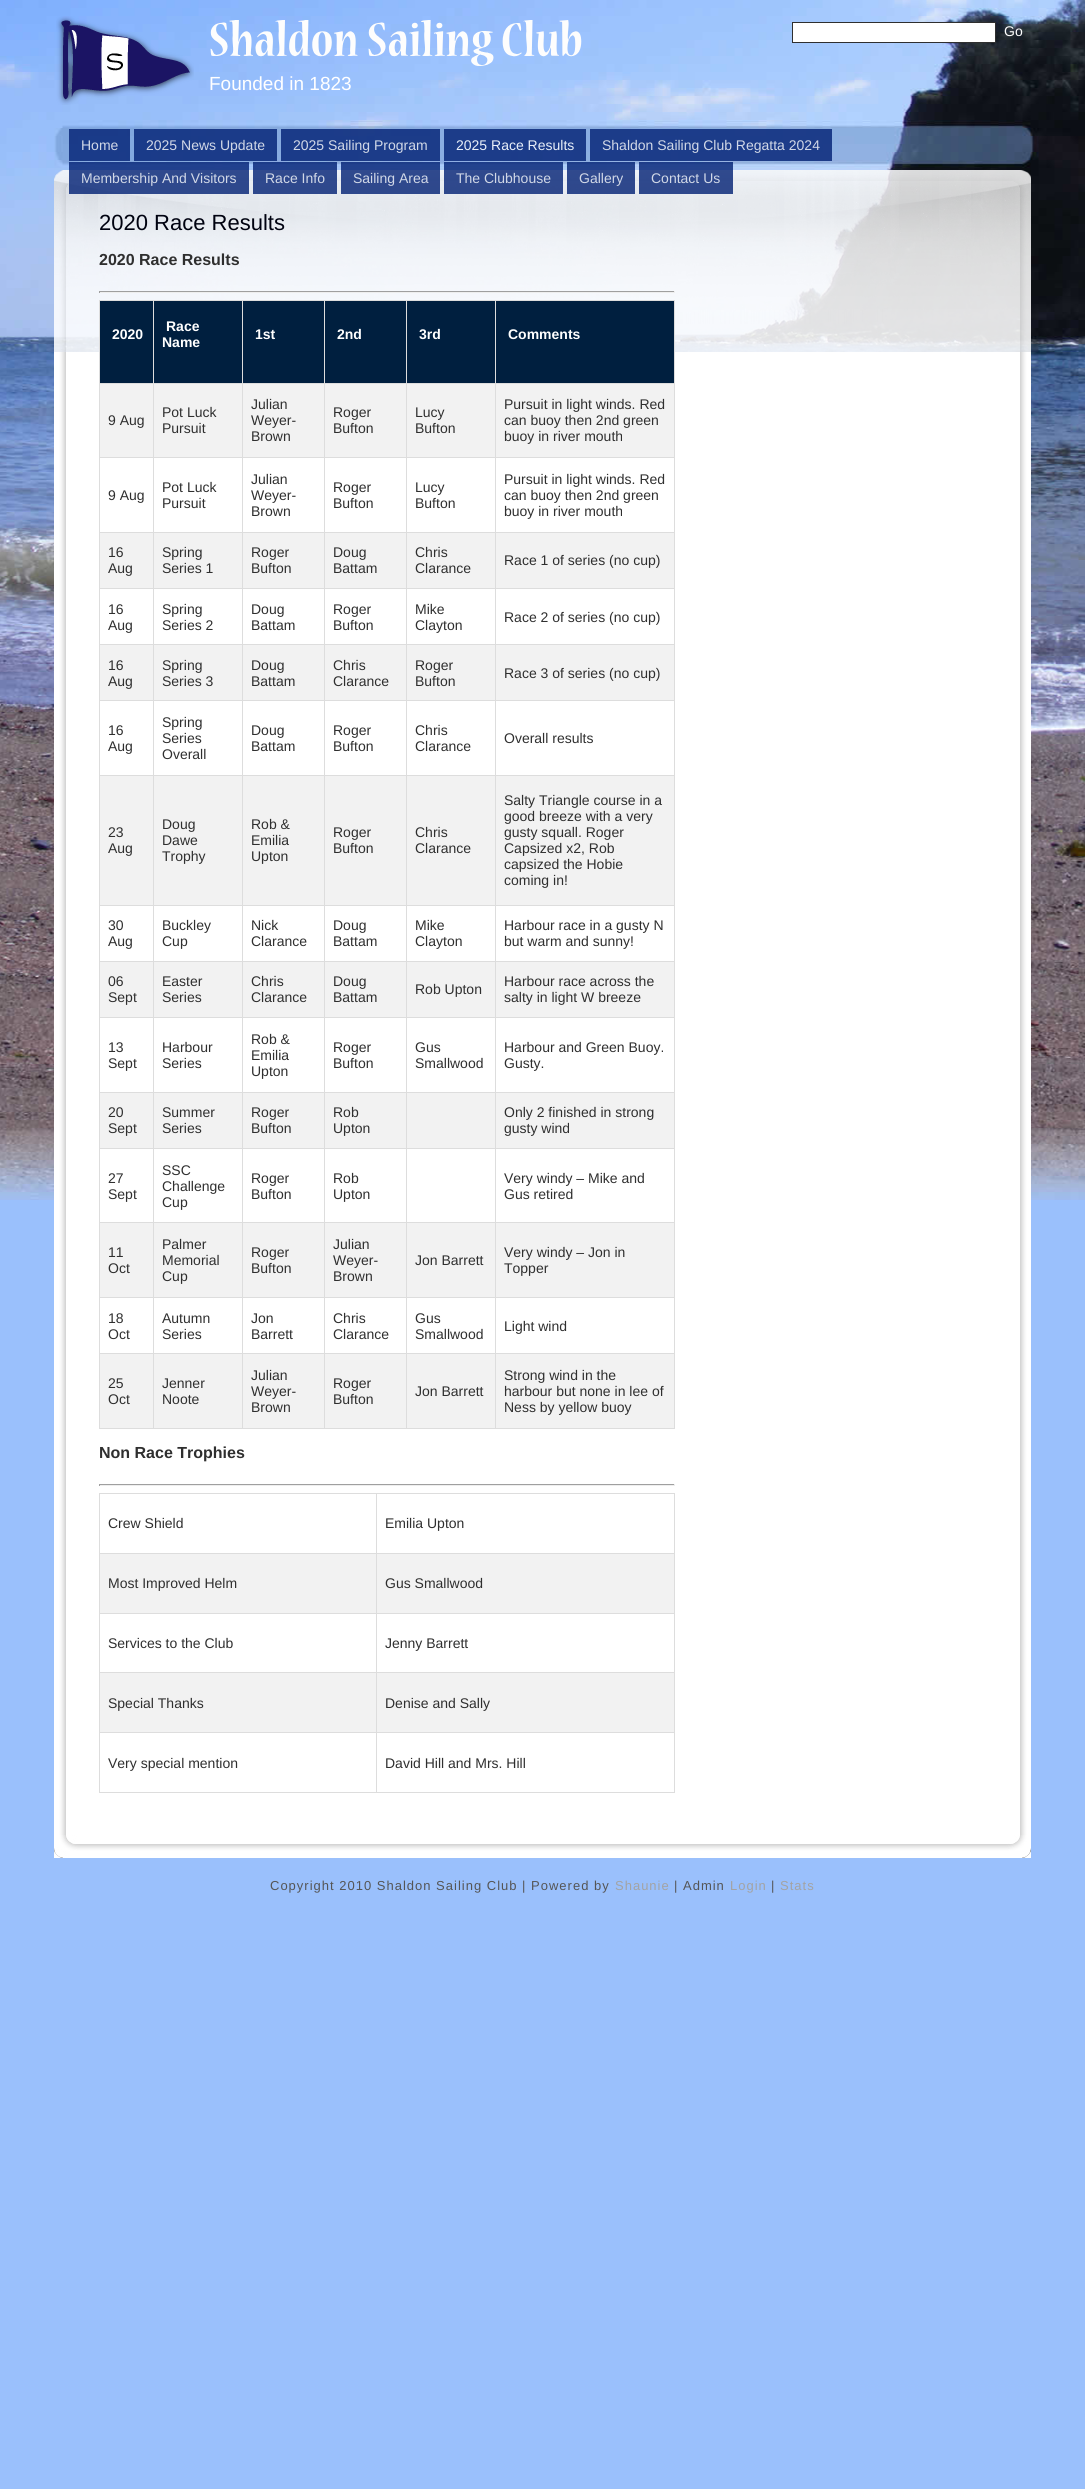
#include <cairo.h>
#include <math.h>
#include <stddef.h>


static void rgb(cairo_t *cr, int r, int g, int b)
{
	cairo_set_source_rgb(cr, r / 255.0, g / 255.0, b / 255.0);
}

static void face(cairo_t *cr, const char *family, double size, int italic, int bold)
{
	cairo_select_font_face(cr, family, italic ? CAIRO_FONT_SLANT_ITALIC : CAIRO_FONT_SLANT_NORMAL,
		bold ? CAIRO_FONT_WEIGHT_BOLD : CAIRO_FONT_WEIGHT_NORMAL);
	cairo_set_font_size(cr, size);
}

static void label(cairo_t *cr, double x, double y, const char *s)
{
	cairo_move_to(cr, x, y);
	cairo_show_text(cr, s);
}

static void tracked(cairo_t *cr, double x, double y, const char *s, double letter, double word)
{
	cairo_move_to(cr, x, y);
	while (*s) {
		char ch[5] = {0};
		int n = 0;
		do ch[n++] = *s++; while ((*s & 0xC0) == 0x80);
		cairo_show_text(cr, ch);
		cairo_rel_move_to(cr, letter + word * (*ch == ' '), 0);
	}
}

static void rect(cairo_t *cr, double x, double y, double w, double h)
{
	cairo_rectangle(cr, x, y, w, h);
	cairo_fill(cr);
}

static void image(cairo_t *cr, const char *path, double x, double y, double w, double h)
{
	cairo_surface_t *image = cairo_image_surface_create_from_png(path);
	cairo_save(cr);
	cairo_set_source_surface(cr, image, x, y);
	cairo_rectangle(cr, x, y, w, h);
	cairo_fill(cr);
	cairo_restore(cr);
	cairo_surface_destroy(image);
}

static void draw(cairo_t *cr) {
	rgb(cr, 154, 192, 252);
	cairo_paint(cr);
	image(cr, "image0.png", 0, 0, 1085, 1200);
	rgb(cr, 255, 255, 255);
	cairo_rectangle(cr, 792.5, 22.5, 203, 20);
	cairo_fill_preserve(cr);
	rgb(cr, 47, 47, 47);
	cairo_set_line_width(cr, 1);
	cairo_stroke(cr);
	face(cr, "Liberation Sans", 14, 0, 0);
	rgb(cr, 255, 255, 255);
	label(cr, 1004, 36, "Go");
	image(cr, "image1.png", 56, 16, 138, 89);
	image(cr, "image2.png", 210, 20, 148, 37);
	image(cr, "image3.png", 368, 20, 126, 46);
	image(cr, "image4.png", 502, 20, 80, 37);
	face(cr, "Liberation Sans", 19, 0, 0);
	label(cr, 209, 90, "Founded in 1823");
	cairo_set_source_rgba(cr, 0, 0.125, 0.451, 0.8);
	rect(cr, 69, 129, 61, 32);
	face(cr, "Liberation Sans", 14, 0, 0);
	rgb(cr, 209, 216, 231);
	label(cr, 81, 150, "Home");
	cairo_set_source_rgba(cr, 0, 0.125, 0.451, 0.8);
	rect(cr, 134, 129, 143, 32);
	rgb(cr, 209, 216, 231);
	label(cr, 146, 150, "2025 News Update");
	cairo_set_source_rgba(cr, 0, 0.125, 0.451, 0.8);
	rect(cr, 281, 129, 159, 32);
	rgb(cr, 209, 216, 231);
	label(cr, 293, 150, "2025 Sailing Program");
	cairo_set_source_rgba(cr, 0, 0.125, 0.451, 0.8);
	rect(cr, 444, 129, 142, 32);
	rgb(cr, 232, 239, 249);
	label(cr, 456, 150, "2025 Race Results");
	cairo_set_source_rgba(cr, 0, 0.125, 0.451, 0.8);
	rect(cr, 590, 129, 242, 32);
	rgb(cr, 209, 216, 231);
	label(cr, 602, 150, "Shaldon Sailing Club Regatta 2024");
	image(cr, "image6.png", 54, 170, 977, 182);
	cairo_set_source_rgba(cr, 0, 0.125, 0.451, 0.8);
	rect(cr, 69, 162, 180, 32);
	rgb(cr, 209, 216, 231);
	label(cr, 81, 183, "Membership And Visitors");
	cairo_set_source_rgba(cr, 0, 0.125, 0.451, 0.8);
	rect(cr, 253, 162, 84, 32);
	rgb(cr, 209, 216, 231);
	label(cr, 265, 183, "Race Info");
	cairo_set_source_rgba(cr, 0, 0.125, 0.451, 0.8);
	rect(cr, 341, 162, 99, 32);
	rgb(cr, 209, 216, 231);
	label(cr, 353, 183, "Sailing Area");
	cairo_set_source_rgba(cr, 0, 0.125, 0.451, 0.8);
	rect(cr, 444, 162, 119, 32);
	rgb(cr, 209, 216, 231);
	label(cr, 456, 183, "The Clubhouse");
	cairo_set_source_rgba(cr, 0, 0.125, 0.451, 0.8);
	rect(cr, 567, 162, 68, 32);
	rgb(cr, 209, 216, 231);
	label(cr, 579, 183, "Gallery");
	cairo_set_source_rgba(cr, 0, 0.125, 0.451, 0.8);
	rect(cr, 639, 162, 94, 32);
	rgb(cr, 209, 216, 231);
	label(cr, 651, 183, "Contact Us");
	image(cr, "image5.png", 54, 352, 977, 1483);
	image(cr, "image7.png", 54, 1835, 977, 23);
	face(cr, "Liberation Sans", 22, 0, 0);
	rgb(cr, 0, 2, 16);
	label(cr, 99, 230, "2020 Race Results");
	face(cr, "Liberation Sans", 16, 0, 1);
	rgb(cr, 47, 47, 47);
	label(cr, 99, 265, "2020 Race Results");
	rgb(cr, 159, 159, 159);
	rect(cr, 99, 291, 576, 1);
	rgb(cr, 238, 238, 238);
	rect(cr, 674, 291, 1, 2);
	rect(cr, 99, 292, 576, 1);
	rgb(cr, 159, 159, 159);
	rect(cr, 99, 291, 1, 2);
	rgb(cr, 0, 31, 63);
	rect(cr, 100, 301, 53, 82);
	rgb(cr, 221, 221, 221);
	rect(cr, 495, 300, 180, 1);
	rect(cr, 495, 383, 180, 1);
	rgb(cr, 242, 242, 242);
	rect(cr, 100, 384, 574, 73);
	rgb(cr, 221, 221, 221);
	rect(cr, 495, 457, 180, 1);
	rect(cr, 495, 532, 180, 1);
	rgb(cr, 242, 242, 242);
	rect(cr, 100, 533, 574, 55);
	rgb(cr, 221, 221, 221);
	rect(cr, 495, 588, 180, 1);
	rect(cr, 495, 644, 180, 1);
	rgb(cr, 242, 242, 242);
	rect(cr, 100, 645, 574, 55);
	rgb(cr, 221, 221, 221);
	rect(cr, 495, 700, 180, 1);
	rect(cr, 495, 775, 180, 1);
	rgb(cr, 242, 242, 242);
	rect(cr, 100, 776, 574, 129);
	rgb(cr, 221, 221, 221);
	rect(cr, 495, 905, 180, 1);
	rect(cr, 495, 961, 180, 1);
	rgb(cr, 242, 242, 242);
	rect(cr, 100, 962, 574, 55);
	rgb(cr, 221, 221, 221);
	rect(cr, 495, 1017, 180, 1);
	rect(cr, 495, 1092, 180, 1);
	rgb(cr, 242, 242, 242);
	rect(cr, 100, 1093, 574, 55);
	rgb(cr, 221, 221, 221);
	rect(cr, 495, 1148, 180, 1);
	rect(cr, 495, 1222, 180, 1);
	rgb(cr, 242, 242, 242);
	rect(cr, 100, 1223, 574, 74);
	rgb(cr, 221, 221, 221);
	rect(cr, 495, 1297, 180, 1);
	rect(cr, 495, 1353, 180, 1);
	rgb(cr, 242, 242, 242);
	rect(cr, 100, 1354, 574, 74);
	rgb(cr, 221, 221, 221);
	rect(cr, 674, 1353, 1, 76);
	rect(cr, 495, 1428, 180, 1);
	rect(cr, 495, 1353, 1, 76);
	rect(cr, 406, 1353, 90, 1);
	rect(cr, 495, 1297, 1, 57);
	rect(cr, 406, 1297, 90, 1);
	rect(cr, 495, 1222, 1, 76);
	rect(cr, 406, 1222, 90, 1);
	rect(cr, 495, 1148, 1, 75);
	rect(cr, 406, 1148, 90, 1);
	rect(cr, 495, 1092, 1, 57);
	rect(cr, 406, 1092, 90, 1);
	rect(cr, 495, 1017, 1, 76);
	rect(cr, 406, 1017, 90, 1);
	rect(cr, 495, 961, 1, 57);
	rect(cr, 406, 961, 90, 1);
	rect(cr, 495, 905, 1, 57);
	rect(cr, 406, 905, 90, 1);
	rect(cr, 495, 775, 1, 131);
	rect(cr, 406, 775, 90, 1);
	rect(cr, 495, 700, 1, 76);
	rect(cr, 406, 700, 90, 1);
	rect(cr, 495, 644, 1, 57);
	rect(cr, 406, 644, 90, 1);
	rect(cr, 495, 588, 1, 57);
	rect(cr, 406, 588, 90, 1);
	rect(cr, 495, 532, 1, 57);
	rect(cr, 406, 532, 90, 1);
	rect(cr, 495, 457, 1, 76);
	rect(cr, 406, 457, 90, 1);
	rect(cr, 495, 383, 1, 75);
	rect(cr, 406, 383, 90, 1);
	rect(cr, 495, 300, 1, 84);
	rect(cr, 406, 300, 90, 1);
	rect(cr, 406, 1428, 90, 1);
	rect(cr, 406, 1353, 1, 76);
	rect(cr, 324, 1353, 83, 1);
	rect(cr, 406, 1297, 1, 57);
	rect(cr, 324, 1297, 83, 1);
	rect(cr, 406, 1222, 1, 76);
	rect(cr, 324, 1222, 83, 1);
	rect(cr, 406, 1148, 1, 75);
	rect(cr, 324, 1148, 83, 1);
	rect(cr, 406, 1092, 1, 57);
	rect(cr, 324, 1092, 83, 1);
	rect(cr, 406, 1017, 1, 76);
	rect(cr, 324, 1017, 83, 1);
	rect(cr, 406, 961, 1, 57);
	rect(cr, 324, 961, 83, 1);
	rect(cr, 406, 905, 1, 57);
	rect(cr, 324, 905, 83, 1);
	rect(cr, 406, 775, 1, 131);
	rect(cr, 324, 775, 83, 1);
	rect(cr, 406, 700, 1, 76);
	rect(cr, 324, 700, 83, 1);
	rect(cr, 406, 644, 1, 57);
	rect(cr, 324, 644, 83, 1);
	rect(cr, 406, 588, 1, 57);
	rect(cr, 324, 588, 83, 1);
	rect(cr, 406, 532, 1, 57);
	rect(cr, 324, 532, 83, 1);
	rect(cr, 406, 457, 1, 76);
	rect(cr, 324, 457, 83, 1);
	rect(cr, 406, 383, 1, 75);
	rect(cr, 324, 383, 83, 1);
	rect(cr, 406, 300, 1, 84);
	rect(cr, 324, 300, 83, 1);
	rect(cr, 324, 1428, 83, 1);
	rect(cr, 324, 1353, 1, 76);
	rect(cr, 242, 1353, 83, 1);
	rect(cr, 324, 1297, 1, 57);
	rect(cr, 242, 1297, 83, 1);
	rect(cr, 324, 1222, 1, 76);
	rect(cr, 242, 1222, 83, 1);
	rect(cr, 324, 1148, 1, 75);
	rect(cr, 242, 1148, 83, 1);
	rect(cr, 324, 1092, 1, 57);
	rect(cr, 242, 1092, 83, 1);
	rect(cr, 324, 1017, 1, 76);
	rect(cr, 242, 1017, 83, 1);
	rect(cr, 324, 961, 1, 57);
	rect(cr, 242, 961, 83, 1);
	rect(cr, 324, 905, 1, 57);
	rect(cr, 242, 905, 83, 1);
	rect(cr, 324, 775, 1, 131);
	rect(cr, 242, 775, 83, 1);
	rect(cr, 324, 700, 1, 76);
	rect(cr, 242, 700, 83, 1);
	rect(cr, 324, 644, 1, 57);
	rect(cr, 242, 644, 83, 1);
	rect(cr, 324, 588, 1, 57);
	rect(cr, 242, 588, 83, 1);
	rect(cr, 324, 532, 1, 57);
	rect(cr, 242, 532, 83, 1);
	rect(cr, 324, 457, 1, 76);
	rect(cr, 242, 457, 83, 1);
	rect(cr, 324, 383, 1, 75);
	rect(cr, 242, 383, 83, 1);
	rect(cr, 324, 300, 1, 84);
	rect(cr, 242, 300, 83, 1);
	rect(cr, 242, 1428, 83, 1);
	rect(cr, 242, 1353, 1, 76);
	rect(cr, 153, 1353, 90, 1);
	rect(cr, 242, 1297, 1, 57);
	rect(cr, 153, 1297, 90, 1);
	rect(cr, 242, 1222, 1, 76);
	rect(cr, 153, 1222, 90, 1);
	rect(cr, 242, 1148, 1, 75);
	rect(cr, 153, 1148, 90, 1);
	rect(cr, 242, 1092, 1, 57);
	rect(cr, 153, 1092, 90, 1);
	rect(cr, 242, 1017, 1, 76);
	rect(cr, 153, 1017, 90, 1);
	rect(cr, 242, 961, 1, 57);
	rect(cr, 153, 961, 90, 1);
	rect(cr, 242, 905, 1, 57);
	rect(cr, 153, 905, 90, 1);
	rect(cr, 242, 775, 1, 131);
	rect(cr, 153, 775, 90, 1);
	rect(cr, 242, 700, 1, 76);
	rect(cr, 153, 700, 90, 1);
	rect(cr, 242, 644, 1, 57);
	rect(cr, 153, 644, 90, 1);
	rect(cr, 242, 588, 1, 57);
	rect(cr, 153, 588, 90, 1);
	rect(cr, 242, 532, 1, 57);
	rect(cr, 153, 532, 90, 1);
	rect(cr, 242, 457, 1, 76);
	rect(cr, 153, 457, 90, 1);
	rect(cr, 242, 383, 1, 75);
	rect(cr, 153, 383, 90, 1);
	rect(cr, 242, 300, 1, 84);
	rect(cr, 153, 300, 90, 1);
	rect(cr, 153, 1428, 90, 1);
	rect(cr, 153, 1353, 1, 76);
	rect(cr, 99, 1353, 55, 1);
	rect(cr, 153, 1297, 1, 57);
	rect(cr, 99, 1297, 55, 1);
	rect(cr, 153, 1222, 1, 76);
	rect(cr, 99, 1222, 55, 1);
	rect(cr, 153, 1148, 1, 75);
	rect(cr, 99, 1148, 55, 1);
	rect(cr, 153, 1092, 1, 57);
	rect(cr, 99, 1092, 55, 1);
	rect(cr, 153, 1017, 1, 76);
	rect(cr, 99, 1017, 55, 1);
	rect(cr, 153, 961, 1, 57);
	rect(cr, 99, 961, 55, 1);
	rect(cr, 153, 905, 1, 57);
	rect(cr, 99, 905, 55, 1);
	rect(cr, 153, 775, 1, 131);
	rect(cr, 99, 775, 55, 1);
	rect(cr, 153, 700, 1, 76);
	rect(cr, 99, 700, 55, 1);
	rect(cr, 153, 644, 1, 57);
	rect(cr, 99, 644, 55, 1);
	rect(cr, 153, 588, 1, 57);
	rect(cr, 99, 588, 55, 1);
	rect(cr, 153, 532, 1, 57);
	rect(cr, 99, 532, 55, 1);
	rect(cr, 153, 457, 1, 76);
	rect(cr, 99, 457, 55, 1);
	rect(cr, 153, 383, 1, 75);
	rect(cr, 99, 383, 55, 1);
	rect(cr, 153, 300, 1, 84);
	rect(cr, 99, 300, 55, 1);
	rect(cr, 99, 1428, 55, 1);
	rect(cr, 99, 1353, 1, 76);
	rect(cr, 99, 1297, 1, 57);
	rect(cr, 99, 1222, 1, 76);
	rect(cr, 99, 1148, 1, 75);
	rect(cr, 99, 1092, 1, 57);
	rect(cr, 99, 1017, 1, 76);
	rect(cr, 99, 961, 1, 57);
	rect(cr, 99, 905, 1, 57);
	rect(cr, 99, 775, 1, 131);
	rect(cr, 99, 700, 1, 76);
	rect(cr, 99, 644, 1, 57);
	rect(cr, 99, 588, 1, 57);
	rect(cr, 99, 532, 1, 57);
	rect(cr, 99, 457, 1, 76);
	rect(cr, 99, 383, 1, 75);
	rect(cr, 99, 300, 1, 84);
	face(cr, "Liberation Sans", 14, 0, 1);
	rgb(cr, 255, 255, 255);
	label(cr, 112, 339, "2020");
	rgb(cr, 0, 31, 63);
	rect(cr, 154, 301, 88, 82);
	rgb(cr, 255, 255, 255);
	label(cr, 166, 331, "Race");
	label(cr, 162, 347, "Name");
	rgb(cr, 0, 31, 63);
	rect(cr, 243, 301, 81, 82);
	rgb(cr, 255, 255, 255);
	label(cr, 255, 339, "1st");
	rgb(cr, 0, 31, 63);
	rect(cr, 325, 301, 81, 82);
	rgb(cr, 255, 255, 255);
	label(cr, 337, 339, "2nd");
	rgb(cr, 0, 31, 63);
	rect(cr, 407, 301, 88, 82);
	rgb(cr, 255, 255, 255);
	label(cr, 419, 339, "3rd");
	rgb(cr, 0, 31, 63);
	rect(cr, 496, 301, 178, 82);
	rgb(cr, 221, 221, 221);
	rect(cr, 674, 1297, 1, 57);
	rect(cr, 674, 1222, 1, 76);
	rect(cr, 674, 1148, 1, 75);
	rect(cr, 674, 1092, 1, 57);
	rect(cr, 674, 1017, 1, 76);
	rect(cr, 674, 961, 1, 57);
	rect(cr, 674, 905, 1, 57);
	rect(cr, 674, 775, 1, 131);
	rect(cr, 674, 700, 1, 76);
	rect(cr, 674, 644, 1, 57);
	rect(cr, 674, 588, 1, 57);
	rect(cr, 674, 532, 1, 57);
	rect(cr, 674, 457, 1, 76);
	rect(cr, 674, 383, 1, 75);
	rect(cr, 674, 300, 1, 84);
	rgb(cr, 255, 255, 255);
	label(cr, 508, 339, "Comments");
	face(cr, "Liberation Sans", 14, 0, 0);
	rgb(cr, 47, 47, 47);
	label(cr, 108, 425, "9 Aug");
	label(cr, 162, 417, "Pot Luck");
	label(cr, 162, 433, "Pursuit");
	label(cr, 251, 409, "Julian");
	label(cr, 251, 425, "Weyer-");
	label(cr, 251, 441, "Brown");
	label(cr, 333, 417, "Roger");
	label(cr, 333, 433, "Bufton");
	label(cr, 415, 417, "Lucy");
	label(cr, 415, 433, "Bufton");
	label(cr, 504, 409, "Pursuit in light winds. Red");
	label(cr, 504, 425, "can buoy then 2nd green");
	label(cr, 504, 441, "buoy in river mouth");
	label(cr, 108, 500, "9 Aug");
	label(cr, 162, 492, "Pot Luck");
	label(cr, 162, 508, "Pursuit");
	label(cr, 251, 484, "Julian");
	label(cr, 251, 500, "Weyer-");
	label(cr, 251, 516, "Brown");
	label(cr, 333, 492, "Roger");
	label(cr, 333, 508, "Bufton");
	label(cr, 415, 492, "Lucy");
	label(cr, 415, 508, "Bufton");
	label(cr, 504, 484, "Pursuit in light winds. Red");
	label(cr, 504, 500, "can buoy then 2nd green");
	label(cr, 504, 516, "buoy in river mouth");
	label(cr, 108, 557, "16");
	label(cr, 108, 573, "Aug");
	label(cr, 162, 557, "Spring");
	label(cr, 162, 573, "Series 1");
	label(cr, 251, 557, "Roger");
	label(cr, 251, 573, "Bufton");
	label(cr, 333, 557, "Doug");
	label(cr, 333, 573, "Battam");
	label(cr, 415, 557, "Chris");
	label(cr, 415, 573, "Clarance");
	label(cr, 504, 565, "Race 1 of series (no cup)");
	label(cr, 108, 614, "16");
	label(cr, 108, 630, "Aug");
	label(cr, 162, 614, "Spring");
	label(cr, 162, 630, "Series 2");
	label(cr, 251, 614, "Doug");
	label(cr, 251, 630, "Battam");
	label(cr, 333, 614, "Roger");
	label(cr, 333, 630, "Bufton");
	label(cr, 415, 614, "Mike");
	label(cr, 415, 630, "Clayton");
	label(cr, 504, 622, "Race 2 of series (no cup)");
	label(cr, 108, 670, "16");
	label(cr, 108, 686, "Aug");
	label(cr, 162, 670, "Spring");
	label(cr, 162, 686, "Series 3");
	label(cr, 251, 670, "Doug");
	label(cr, 251, 686, "Battam");
	label(cr, 333, 670, "Chris");
	label(cr, 333, 686, "Clarance");
	label(cr, 415, 670, "Roger");
	label(cr, 415, 686, "Bufton");
	label(cr, 504, 678, "Race 3 of series (no cup)");
	label(cr, 108, 735, "16");
	label(cr, 108, 751, "Aug");
	label(cr, 162, 727, "Spring");
	label(cr, 162, 743, "Series");
	label(cr, 162, 759, "Overall");
	label(cr, 251, 735, "Doug");
	label(cr, 251, 751, "Battam");
	label(cr, 333, 735, "Roger");
	label(cr, 333, 751, "Bufton");
	label(cr, 415, 735, "Chris");
	label(cr, 415, 751, "Clarance");
	label(cr, 504, 743, "Overall results");
	label(cr, 108, 837, "23");
	label(cr, 108, 853, "Aug");
	label(cr, 162, 829, "Doug");
	label(cr, 162, 845, "Dawe");
	label(cr, 162, 861, "Trophy");
	label(cr, 251, 829, "Rob &");
	label(cr, 251, 845, "Emilia");
	label(cr, 251, 861, "Upton");
	label(cr, 333, 837, "Roger");
	label(cr, 333, 853, "Bufton");
	label(cr, 415, 837, "Chris");
	label(cr, 415, 853, "Clarance");
	label(cr, 504, 805, "Salty Triangle course in a");
	label(cr, 504, 821, "good breeze with a very");
	label(cr, 504, 837, "gusty squall. Roger");
	label(cr, 504, 853, "Capsized x2, Rob");
	label(cr, 504, 869, "capsized the Hobie");
	label(cr, 504, 885, "coming in!");
	label(cr, 108, 930, "30");
	label(cr, 108, 946, "Aug");
	label(cr, 162, 930, "Buckley");
	label(cr, 162, 946, "Cup");
	label(cr, 251, 930, "Nick");
	label(cr, 251, 946, "Clarance");
	label(cr, 333, 930, "Doug");
	label(cr, 333, 946, "Battam");
	label(cr, 415, 930, "Mike");
	label(cr, 415, 946, "Clayton");
	label(cr, 504, 930, "Harbour race in a gusty N");
	label(cr, 504, 946, "but warm and sunny!");
	label(cr, 108, 986, "06");
	label(cr, 108, 1002, "Sept");
	label(cr, 162, 986, "Easter");
	label(cr, 162, 1002, "Series");
	label(cr, 251, 986, "Chris");
	label(cr, 251, 1002, "Clarance");
	label(cr, 333, 986, "Doug");
	label(cr, 333, 1002, "Battam");
	label(cr, 415, 994, "Rob Upton");
	label(cr, 504, 986, "Harbour race across the");
	label(cr, 504, 1002, "salty in light W breeze");
	label(cr, 108, 1052, "13");
	label(cr, 108, 1068, "Sept");
	label(cr, 162, 1052, "Harbour");
	label(cr, 162, 1068, "Series");
	label(cr, 251, 1044, "Rob &");
	label(cr, 251, 1060, "Emilia");
	label(cr, 251, 1076, "Upton");
	label(cr, 333, 1052, "Roger");
	label(cr, 333, 1068, "Bufton");
	label(cr, 415, 1052, "Gus");
	label(cr, 415, 1068, "Smallwood");
	label(cr, 504, 1052, "Harbour and Green Buoy.");
	label(cr, 504, 1068, "Gusty.");
	label(cr, 108, 1117, "20");
	label(cr, 108, 1133, "Sept");
	label(cr, 162, 1117, "Summer");
	label(cr, 162, 1133, "Series");
	label(cr, 251, 1117, "Roger");
	label(cr, 251, 1133, "Bufton");
	label(cr, 333, 1117, "Rob");
	label(cr, 333, 1133, "Upton");
	label(cr, 504, 1117, "Only 2 finished in strong");
	label(cr, 504, 1133, "gusty wind");
	label(cr, 108, 1183, "27");
	label(cr, 108, 1199, "Sept");
	label(cr, 162, 1175, "SSC");
	label(cr, 162, 1191, "Challenge");
	label(cr, 162, 1207, "Cup");
	label(cr, 251, 1183, "Roger");
	label(cr, 251, 1199, "Bufton");
	label(cr, 333, 1183, "Rob");
	label(cr, 333, 1199, "Upton");
	label(cr, 504, 1183, "Very windy – Mike and");
	label(cr, 504, 1199, "Gus retired");
	label(cr, 108, 1257, "11");
	label(cr, 108, 1273, "Oct");
	label(cr, 162, 1249, "Palmer");
	label(cr, 162, 1265, "Memorial");
	label(cr, 162, 1281, "Cup");
	label(cr, 251, 1257, "Roger");
	label(cr, 251, 1273, "Bufton");
	label(cr, 333, 1249, "Julian");
	label(cr, 333, 1265, "Weyer-");
	label(cr, 333, 1281, "Brown");
	label(cr, 415, 1265, "Jon Barrett");
	label(cr, 504, 1257, "Very windy – Jon in");
	label(cr, 504, 1273, "Topper");
	label(cr, 108, 1323, "18");
	label(cr, 108, 1339, "Oct");
	label(cr, 162, 1323, "Autumn");
	label(cr, 162, 1339, "Series");
	label(cr, 251, 1323, "Jon");
	label(cr, 251, 1339, "Barrett");
	label(cr, 333, 1323, "Chris");
	label(cr, 333, 1339, "Clarance");
	label(cr, 415, 1323, "Gus");
	label(cr, 415, 1339, "Smallwood");
	label(cr, 504, 1331, "Light wind");
	label(cr, 108, 1388, "25");
	label(cr, 108, 1404, "Oct");
	label(cr, 162, 1388, "Jenner");
	label(cr, 162, 1404, "Noote");
	label(cr, 251, 1380, "Julian");
	label(cr, 251, 1396, "Weyer-");
	label(cr, 251, 1412, "Brown");
	label(cr, 333, 1388, "Roger");
	label(cr, 333, 1404, "Bufton");
	label(cr, 415, 1396, "Jon Barrett");
	label(cr, 504, 1380, "Strong wind in the");
	label(cr, 504, 1396, "harbour but none in lee of");
	label(cr, 504, 1412, "Ness by yellow buoy");
	face(cr, "Liberation Sans", 16, 0, 1);
	label(cr, 99, 1458, "Non Race Trophies");
	rgb(cr, 159, 159, 159);
	rect(cr, 99, 1484, 576, 1);
	rgb(cr, 238, 238, 238);
	rect(cr, 674, 1484, 1, 2);
	rect(cr, 99, 1485, 576, 1);
	rgb(cr, 159, 159, 159);
	rect(cr, 99, 1484, 1, 2);
	rgb(cr, 221, 221, 221);
	rect(cr, 376, 1493, 299, 1);
	rect(cr, 376, 1553, 299, 1);
	rgb(cr, 242, 242, 242);
	rect(cr, 100, 1554, 574, 59);
	rgb(cr, 221, 221, 221);
	rect(cr, 376, 1613, 299, 1);
	rect(cr, 376, 1672, 299, 1);
	rgb(cr, 242, 242, 242);
	rect(cr, 100, 1673, 574, 59);
	rgb(cr, 221, 221, 221);
	rect(cr, 376, 1732, 299, 1);
	rect(cr, 674, 1732, 1, 61);
	rect(cr, 376, 1792, 299, 1);
	rect(cr, 376, 1732, 1, 61);
	rect(cr, 99, 1732, 278, 1);
	rect(cr, 376, 1672, 1, 61);
	rect(cr, 99, 1672, 278, 1);
	rect(cr, 376, 1613, 1, 60);
	rect(cr, 99, 1613, 278, 1);
	rect(cr, 376, 1553, 1, 61);
	rect(cr, 99, 1553, 278, 1);
	rect(cr, 376, 1493, 1, 61);
	rect(cr, 99, 1493, 278, 1);
	rect(cr, 99, 1792, 278, 1);
	rect(cr, 99, 1732, 1, 61);
	rect(cr, 99, 1672, 1, 61);
	rect(cr, 99, 1613, 1, 60);
	rect(cr, 99, 1553, 1, 61);
	rect(cr, 99, 1493, 1, 61);
	face(cr, "Liberation Sans", 14, 0, 0);
	rgb(cr, 47, 47, 47);
	label(cr, 108, 1528, "Crew Shield");
	rgb(cr, 221, 221, 221);
	rect(cr, 674, 1672, 1, 61);
	rect(cr, 674, 1613, 1, 60);
	rect(cr, 674, 1553, 1, 61);
	rect(cr, 674, 1493, 1, 61);
	rgb(cr, 47, 47, 47);
	label(cr, 385, 1528, "Emilia Upton");
	label(cr, 108, 1588, "Most Improved Helm");
	label(cr, 385, 1588, "Gus Smallwood");
	label(cr, 108, 1648, "Services to the Club");
	label(cr, 385, 1648, "Jenny Barrett");
	label(cr, 108, 1708, "Special Thanks");
	label(cr, 385, 1708, "Denise and Sally");
	label(cr, 108, 1768, "Very special mention");
	label(cr, 385, 1768, "David Hill and Mrs. Hill");
	face(cr, "Liberation Sans", 13, 0, 0);
	rgb(cr, 85, 85, 85);
	tracked(cr, 270, 1890, "Copyright 2010 Shaldon Sailing Club | Powered by", 1, 0);
	rgb(cr, 163, 163, 163);
	tracked(cr, 615, 1890, "Shaunie", 1, 0);
	rgb(cr, 85, 85, 85);
	tracked(cr, 674, 1890, "| Admin", 1, 0);
	rgb(cr, 163, 163, 163);
	tracked(cr, 730, 1890, "Login", 1, 0);
	rgb(cr, 85, 85, 85);
	tracked(cr, 771, 1890, "|", 1, 0);
	rgb(cr, 163, 163, 163);
	tracked(cr, 780, 1890, "Stats", 1, 0);
}

int main(void) {
	cairo_surface_t *surface = cairo_image_surface_create(CAIRO_FORMAT_RGB24, 1085, 2489);
	cairo_t *cr = cairo_create(surface);
	cairo_font_options_t *options = cairo_font_options_create();
	cairo_font_options_set_hint_metrics(options, CAIRO_HINT_METRICS_OFF);
	cairo_font_options_set_hint_style(options, CAIRO_HINT_STYLE_NONE);
	cairo_set_font_options(cr, options);
	cairo_set_miter_limit(cr, 4);
	draw(cr);
	cairo_surface_write_to_png(surface, "render.png");
	cairo_font_options_destroy(options);
	cairo_destroy(cr);
	cairo_surface_destroy(surface);
	return 0;
}
